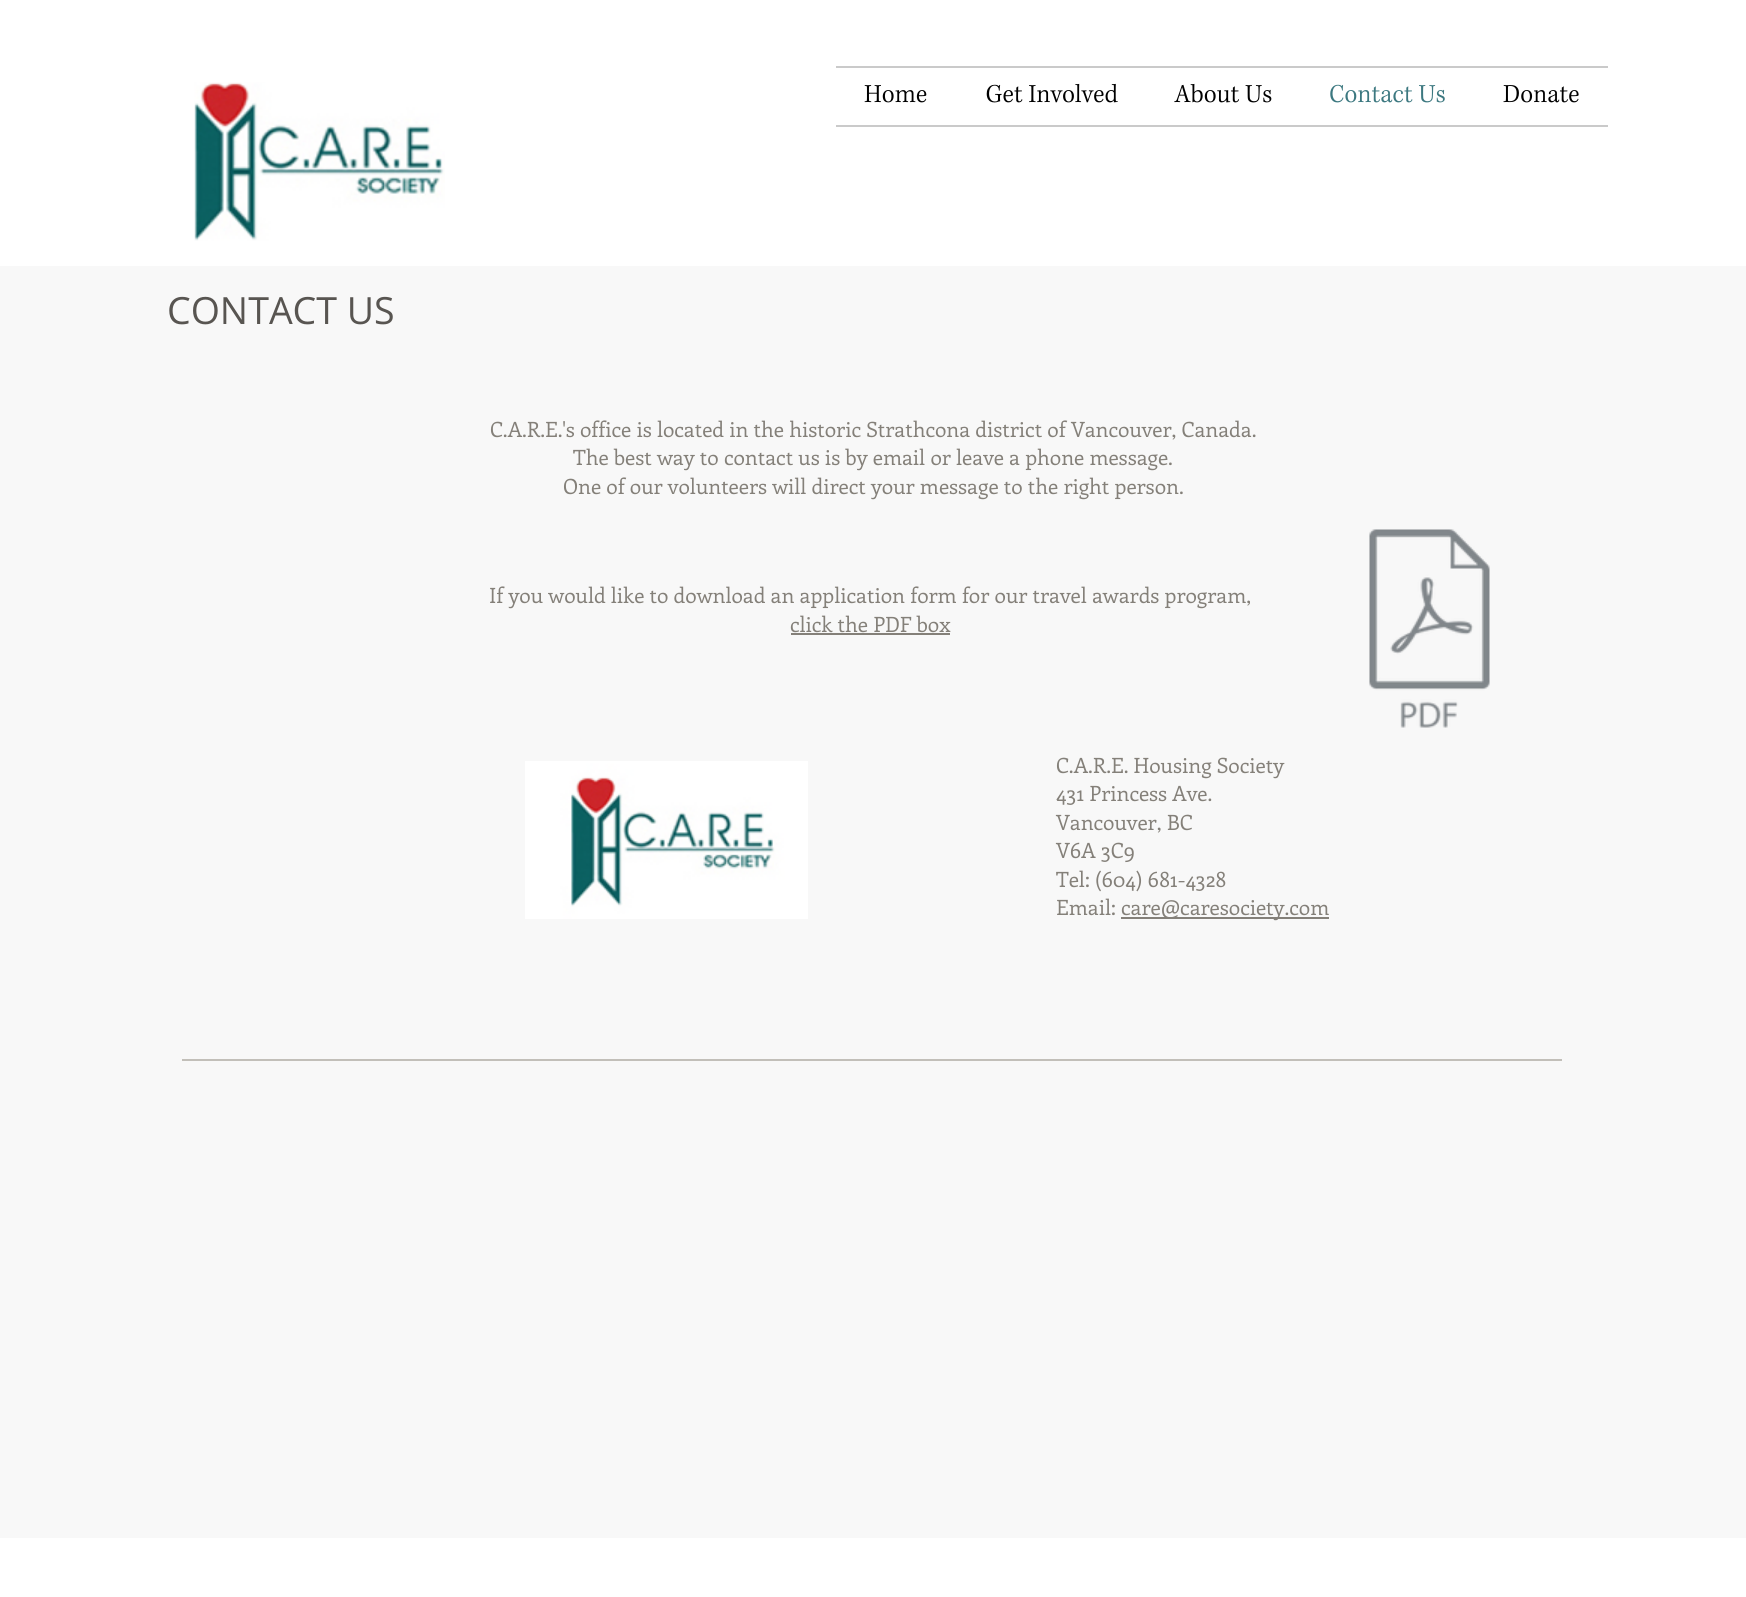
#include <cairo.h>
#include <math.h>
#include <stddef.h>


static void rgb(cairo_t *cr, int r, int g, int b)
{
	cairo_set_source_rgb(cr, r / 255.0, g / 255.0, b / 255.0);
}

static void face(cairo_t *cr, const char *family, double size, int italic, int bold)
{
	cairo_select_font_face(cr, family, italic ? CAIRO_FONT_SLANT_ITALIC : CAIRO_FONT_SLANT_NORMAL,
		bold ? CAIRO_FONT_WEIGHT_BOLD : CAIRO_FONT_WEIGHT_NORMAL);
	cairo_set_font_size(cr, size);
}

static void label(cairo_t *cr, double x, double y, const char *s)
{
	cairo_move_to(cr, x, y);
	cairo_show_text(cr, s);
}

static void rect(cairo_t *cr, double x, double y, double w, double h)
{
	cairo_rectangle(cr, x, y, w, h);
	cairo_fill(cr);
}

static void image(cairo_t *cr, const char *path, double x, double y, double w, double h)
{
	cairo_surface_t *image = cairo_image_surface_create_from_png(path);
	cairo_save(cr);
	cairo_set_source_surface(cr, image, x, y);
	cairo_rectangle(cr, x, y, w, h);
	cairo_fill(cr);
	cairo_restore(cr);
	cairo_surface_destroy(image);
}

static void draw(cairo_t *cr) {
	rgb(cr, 248, 248, 248);
	cairo_paint(cr);
	rgb(cr, 255, 255, 255);
	rect(cr, 0, 0, 1746, 266);
	image(cr, "image0.png", 194, 82, 251, 159);
	rgb(cr, 202, 202, 202);
	rect(cr, 836, 66, 772, 2);
	rect(cr, 836, 125, 772, 2);
	image(cr, "image1.png", 864, 85, 63, 18);
	image(cr, "image2.png", 986, 83, 132, 20);
	image(cr, "image3.png", 1174, 83, 98, 20);
	image(cr, "image4.png", 1330, 84, 115, 19);
	image(cr, "image5.png", 1503, 85, 76, 18);
	face(cr, "Open Sans", 37.5, 0, 0);
	rgb(cr, 88, 85, 81);
	label(cr, 167, 324, "CONTACT US");
	face(cr, "Enriqueta", 21, 0, 0);
	rgb(cr, 132, 128, 121);
	label(cr, 490, 437, "C.A.R.E.'s office is located in the historic Strathcona district of Vancouver, Canada.");
	label(cr, 573, 465, "The best way to contact us is by email or leave a phone message.");
	label(cr, 563, 494, "One of our volunteers will direct your message to the right person.");
	label(cr, 489, 603, "If you would like to download an application form for our travel awards program,");
	label(cr, 790, 632, "click the PDF box");
	rect(cr, 791, 633, 159, 2);
	image(cr, "image6.png", 1369, 529, 121, 199);
	image(cr, "image7.png", 525, 761, 283, 158);
	label(cr, 1056, 773, "C.A.R.E. Housing Society");
	label(cr, 1056, 801, "431 Princess Ave.");
	label(cr, 1056, 830, "Vancouver, BC");
	label(cr, 1056, 858, "V6A 3C9");
	label(cr, 1056, 887, "Tel: (604) 681-4328");
	label(cr, 1056, 915, "Email:");
	rect(cr, 1121, 917, 208, 2);
	label(cr, 1121, 915, "care@caresociety.com");
	rgb(cr, 194, 191, 185);
	rect(cr, 182, 1059, 1380, 2);
	rgb(cr, 255, 255, 255);
	rect(cr, 0, 1538, 1746, 59);
}

int main(void) {
	cairo_surface_t *surface = cairo_image_surface_create(CAIRO_FORMAT_RGB24, 1746, 1597);
	cairo_t *cr = cairo_create(surface);
	cairo_font_options_t *options = cairo_font_options_create();
	cairo_font_options_set_hint_metrics(options, CAIRO_HINT_METRICS_OFF);
	cairo_font_options_set_hint_style(options, CAIRO_HINT_STYLE_NONE);
	cairo_set_font_options(cr, options);
	cairo_set_miter_limit(cr, 4);
	draw(cr);
	cairo_surface_write_to_png(surface, "render.png");
	cairo_font_options_destroy(options);
	cairo_destroy(cr);
	cairo_surface_destroy(surface);
	return 0;
}
